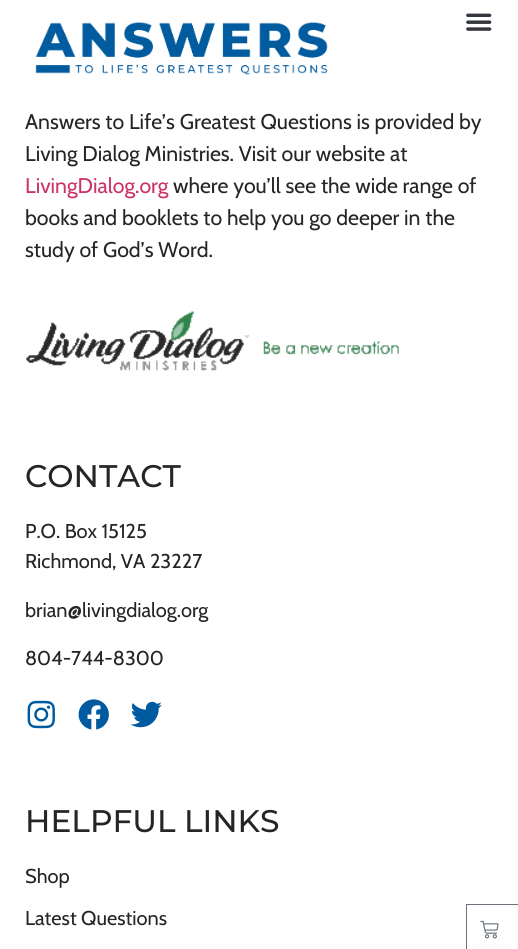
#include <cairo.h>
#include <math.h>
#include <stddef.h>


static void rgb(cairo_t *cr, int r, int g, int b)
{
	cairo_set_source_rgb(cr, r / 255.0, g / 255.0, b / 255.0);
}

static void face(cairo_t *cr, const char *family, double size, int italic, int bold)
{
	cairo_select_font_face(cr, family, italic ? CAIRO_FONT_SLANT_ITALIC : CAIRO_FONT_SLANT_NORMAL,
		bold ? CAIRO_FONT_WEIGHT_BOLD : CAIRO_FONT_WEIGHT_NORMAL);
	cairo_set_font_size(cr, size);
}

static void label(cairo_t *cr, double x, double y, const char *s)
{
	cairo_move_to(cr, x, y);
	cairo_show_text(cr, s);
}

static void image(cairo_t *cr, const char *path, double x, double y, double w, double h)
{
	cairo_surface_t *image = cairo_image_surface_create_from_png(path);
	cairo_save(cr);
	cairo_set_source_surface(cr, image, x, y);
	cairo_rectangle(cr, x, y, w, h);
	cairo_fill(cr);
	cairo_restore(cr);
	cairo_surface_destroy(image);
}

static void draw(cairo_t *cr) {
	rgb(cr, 255, 255, 255);
	cairo_paint(cr);
	image(cr, "image0.png", 466, 13, 26, 18);
	image(cr, "image1.png", 35, 22, 293, 53);
	face(cr, "Cabin", 21.25, 0, 0);
	rgb(cr, 37, 37, 37);
	label(cr, 25, 129, "Answers to Life’s Greatest Questions is provided by");
	label(cr, 25, 161, "Living Dialog Ministries. Visit our website at");
	rgb(cr, 204, 51, 102);
	label(cr, 25, 193, "LivingDialog.org");
	rgb(cr, 37, 37, 37);
	label(cr, 173, 193, "where you’ll see the wide range of");
	label(cr, 25, 225, "books and booklets to help you go deeper in the");
	label(cr, 25, 257, "study of God’s Word.");
	image(cr, "image2.png", 26, 311, 373, 60);
	face(cr, "Montserrat Medium", 31.25, 0, 0);
	label(cr, 25, 487, "CONTACT");
	face(cr, "Cabin", 20, 0, 0);
	label(cr, 25, 538, "P.O. Box 15125");
	label(cr, 25, 568, "Richmond, VA 23227");
	label(cr, 25, 617, "brian@livingdialog.org");
	label(cr, 25, 665, "804-744-8300");
	image(cr, "image3.png", 27, 700, 28, 29);
	image(cr, "image4.png", 78, 699, 31, 31);
	image(cr, "image5.png", 130, 701, 32, 27);
	face(cr, "Montserrat Medium", 31.25, 0, 0);
	label(cr, 25, 832, "HELPFUL LINKS");
	face(cr, "Cabin", 20, 0, 0);
	label(cr, 25, 883, "Shop");
	label(cr, 25, 925, "Latest Questions");
	cairo_rectangle(cr, 466.5, 904.5, 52, 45);
	rgb(cr, 105, 114, 125);
	cairo_set_line_width(cr, 1);
	cairo_stroke(cr);
	image(cr, "image6.png", 480, 920, 19, 19);
}

int main(void) {
	cairo_surface_t *surface = cairo_image_surface_create(CAIRO_FORMAT_RGB24, 518, 949);
	cairo_t *cr = cairo_create(surface);
	cairo_font_options_t *options = cairo_font_options_create();
	cairo_font_options_set_hint_metrics(options, CAIRO_HINT_METRICS_OFF);
	cairo_font_options_set_hint_style(options, CAIRO_HINT_STYLE_NONE);
	cairo_set_font_options(cr, options);
	cairo_set_miter_limit(cr, 4);
	draw(cr);
	cairo_surface_write_to_png(surface, "render.png");
	cairo_font_options_destroy(options);
	cairo_destroy(cr);
	cairo_surface_destroy(surface);
	return 0;
}
